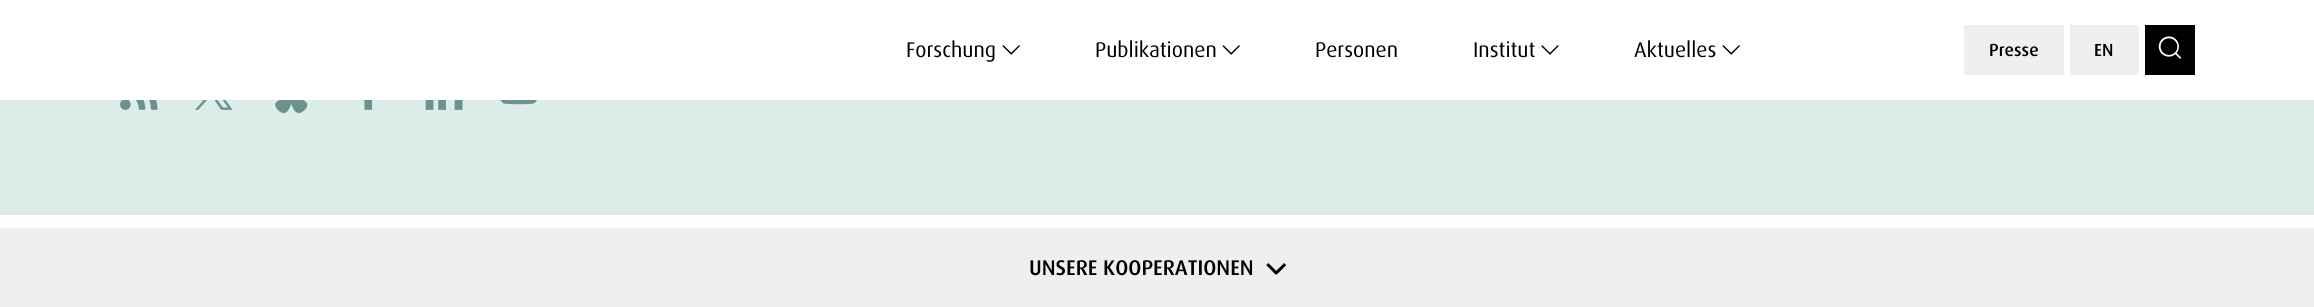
#include <cairo.h>
#include <math.h>
#include <stddef.h>


static void rgb(cairo_t *cr, int r, int g, int b)
{
	cairo_set_source_rgb(cr, r / 255.0, g / 255.0, b / 255.0);
}

static void face(cairo_t *cr, const char *family, double size, int italic, int bold)
{
	cairo_select_font_face(cr, family, italic ? CAIRO_FONT_SLANT_ITALIC : CAIRO_FONT_SLANT_NORMAL,
		bold ? CAIRO_FONT_WEIGHT_BOLD : CAIRO_FONT_WEIGHT_NORMAL);
	cairo_set_font_size(cr, size);
}

static void label(cairo_t *cr, double x, double y, const char *s)
{
	cairo_move_to(cr, x, y);
	cairo_show_text(cr, s);
}

static void rect(cairo_t *cr, double x, double y, double w, double h)
{
	cairo_rectangle(cr, x, y, w, h);
	cairo_fill(cr);
}

static void image(cairo_t *cr, const char *path, double x, double y, double w, double h)
{
	cairo_surface_t *image = cairo_image_surface_create_from_png(path);
	cairo_save(cr);
	cairo_set_source_surface(cr, image, x, y);
	cairo_rectangle(cr, x, y, w, h);
	cairo_fill(cr);
	cairo_restore(cr);
	cairo_surface_destroy(image);
}

static void draw(cairo_t *cr) {
	rgb(cr, 219, 236, 233);
	cairo_paint(cr);
	rgb(cr, 255, 255, 255);
	rect(cr, 0, 0, 2314, 100);
	face(cr, "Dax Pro", 21.25, 0, 0);
	rgb(cr, 0, 0, 0);
	label(cr, 906, 57, "Forschung");
	image(cr, "image0.png", 1002, 45, 18, 10);
	label(cr, 1095, 57, "Publikationen");
	image(cr, "image0.png", 1222, 45, 18, 10);
	label(cr, 1315, 57, "Personen");
	label(cr, 1473, 57, "Institut");
	image(cr, "image1.png", 1541, 45, 18, 10);
	label(cr, 1634, 57, "Aktuelles");
	image(cr, "image0.png", 1722, 45, 18, 10);
	rgb(cr, 239, 239, 239);
	rect(cr, 1964, 25, 100, 50);
	face(cr, "Dax Pro Medium", 17.5, 0, 0);
	rgb(cr, 0, 0, 0);
	label(cr, 1989, 56, "Presse");
	rgb(cr, 239, 239, 239);
	rect(cr, 2070, 25, 69, 50);
	rgb(cr, 0, 0, 0);
	label(cr, 2094, 56, "EN");
	rect(cr, 2145, 25, 50, 50);
	image(cr, "image2.png", 2158, 36, 24, 23);
	image(cr, "image3.png", 120, 100, 38, 10);
	image(cr, "image4.png", 195, 100, 38, 10);
	image(cr, "image5.png", 275, 100, 33, 13);
	image(cr, "image6.png", 364, 100, 8, 10);
	image(cr, "image7.png", 425, 100, 38, 10);
	image(cr, "image8.png", 500, 100, 37, 5);
	rgb(cr, 255, 255, 255);
	rect(cr, 0, 215, 2314, 13);
	rgb(cr, 239, 239, 239);
	rect(cr, 0, 228, 2314, 79);
	face(cr, "Dax Pro Medium", 21.25, 0, 0);
	rgb(cr, 0, 0, 0);
	label(cr, 1029, 275, "UNSERE KOOPERATIONEN");
	image(cr, "image9.png", 1266, 263, 21, 12);
}

int main(void) {
	cairo_surface_t *surface = cairo_image_surface_create(CAIRO_FORMAT_RGB24, 2314, 307);
	cairo_t *cr = cairo_create(surface);
	cairo_font_options_t *options = cairo_font_options_create();
	cairo_font_options_set_hint_metrics(options, CAIRO_HINT_METRICS_OFF);
	cairo_font_options_set_hint_style(options, CAIRO_HINT_STYLE_NONE);
	cairo_set_font_options(cr, options);
	cairo_set_miter_limit(cr, 4);
	draw(cr);
	cairo_surface_write_to_png(surface, "render.png");
	cairo_font_options_destroy(options);
	cairo_destroy(cr);
	cairo_surface_destroy(surface);
	return 0;
}
